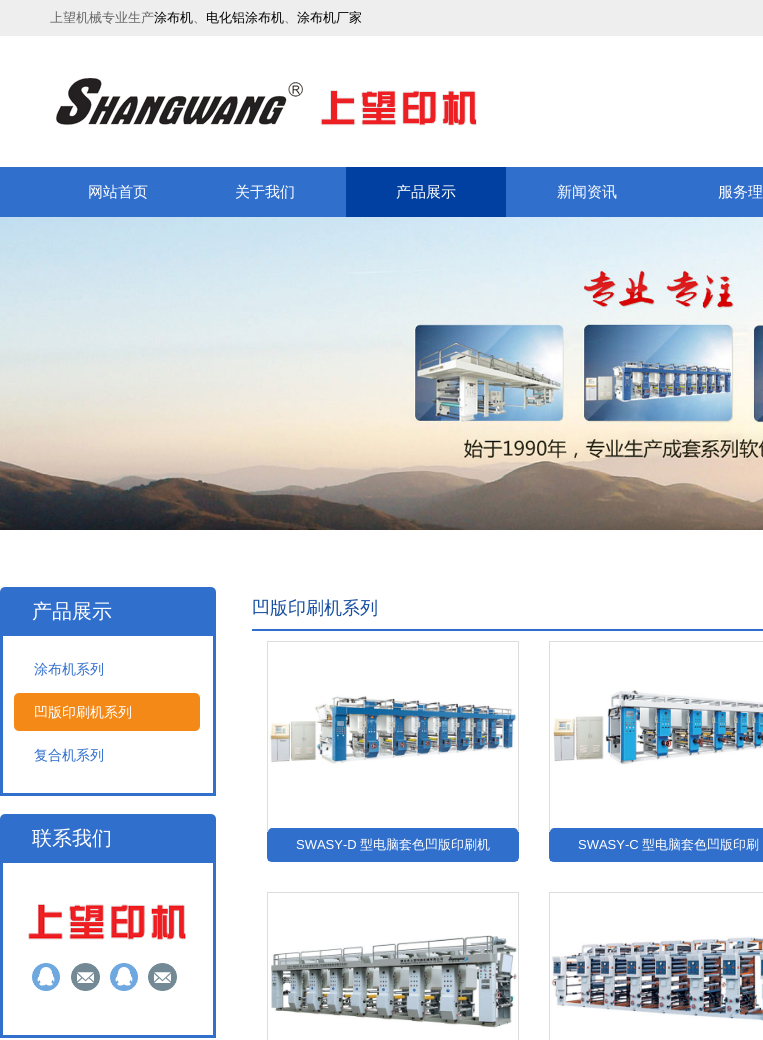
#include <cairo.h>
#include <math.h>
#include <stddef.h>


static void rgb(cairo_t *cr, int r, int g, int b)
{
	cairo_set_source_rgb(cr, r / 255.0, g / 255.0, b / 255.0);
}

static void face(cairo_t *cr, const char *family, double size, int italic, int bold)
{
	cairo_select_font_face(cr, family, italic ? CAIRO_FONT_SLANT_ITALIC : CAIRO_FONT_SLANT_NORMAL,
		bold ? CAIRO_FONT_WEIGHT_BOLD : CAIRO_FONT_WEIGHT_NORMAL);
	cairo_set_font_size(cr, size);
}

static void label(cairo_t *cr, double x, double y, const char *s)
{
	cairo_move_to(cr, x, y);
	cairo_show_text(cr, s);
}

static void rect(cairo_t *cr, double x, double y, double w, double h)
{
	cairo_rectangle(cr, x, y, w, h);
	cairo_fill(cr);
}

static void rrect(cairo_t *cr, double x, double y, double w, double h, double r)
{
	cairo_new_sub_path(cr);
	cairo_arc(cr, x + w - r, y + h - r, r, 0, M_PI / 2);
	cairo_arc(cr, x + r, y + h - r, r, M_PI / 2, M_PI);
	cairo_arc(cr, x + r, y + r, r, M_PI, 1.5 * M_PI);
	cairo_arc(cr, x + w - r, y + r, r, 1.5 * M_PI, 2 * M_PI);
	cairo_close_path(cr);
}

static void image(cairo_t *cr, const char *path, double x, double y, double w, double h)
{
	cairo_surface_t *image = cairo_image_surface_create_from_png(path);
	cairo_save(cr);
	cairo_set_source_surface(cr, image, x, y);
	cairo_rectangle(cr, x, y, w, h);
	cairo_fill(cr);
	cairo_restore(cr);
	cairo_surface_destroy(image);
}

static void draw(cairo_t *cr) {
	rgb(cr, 255, 255, 255);
	cairo_paint(cr);
	rgb(cr, 238, 238, 238);
	rect(cr, 0, 0, 763, 36);
	face(cr, "WenQuanYi Zen Hei Medium", 13, 0, 0);
	rgb(cr, 102, 102, 102);
	label(cr, 50, 22, "上望机械专业生产");
	rgb(cr, 0, 0, 0);
	label(cr, 154, 22, "涂布机");
	rgb(cr, 102, 102, 102);
	label(cr, 193, 22, "、");
	rgb(cr, 0, 0, 0);
	label(cr, 206, 22, "电化铝涂布机");
	rgb(cr, 102, 102, 102);
	label(cr, 284, 22, "、");
	rgb(cr, 0, 0, 0);
	label(cr, 297, 22, "涂布机厂家");
	image(cr, "image0.png", 56, 78, 421, 48);
	rgb(cr, 49, 111, 205);
	rect(cr, 0, 167, 763, 50);
	face(cr, "WenQuanYi Zen Hei Medium", 15, 0, 0);
	rgb(cr, 255, 255, 255);
	label(cr, 88, 197, "网站首页");
	label(cr, 235, 197, "关于我们");
	rgb(cr, 1, 64, 160);
	rect(cr, 346, 167, 160, 50);
	rgb(cr, 255, 255, 255);
	label(cr, 396, 197, "产品展示");
	label(cr, 557, 197, "新闻资讯");
	label(cr, 718, 197, "服务理");
	image(cr, "image1.png", 0, 217, 763, 313);
	cairo_new_path(cr);
	cairo_move_to(cr, 5, 588.5);
	cairo_line_to(cr, 211, 588.5);
	cairo_curve_to(cr, 213, 588.5, 214.5, 590, 214.5, 592);
	cairo_line_to(cr, 214.5, 794.5);
	cairo_line_to(cr, 1.5, 794.5);
	cairo_line_to(cr, 1.5, 592);
	cairo_curve_to(cr, 1.5, 590, 3, 588.5, 5, 588.5);
	cairo_close_path(cr);
	rgb(cr, 49, 111, 205);
	cairo_set_line_width(cr, 3);
	cairo_stroke(cr);
	rect(cr, 3, 590, 210, 46);
	face(cr, "WenQuanYi Zen Hei Medium", 20, 0, 0);
	rgb(cr, 255, 255, 255);
	label(cr, 32, 618, "产品展示");
	face(cr, "WenQuanYi Zen Hei Medium", 14, 0, 0);
	rgb(cr, 49, 111, 205);
	label(cr, 34, 674, "涂布机系列");
	image(cr, "image2.png", 14, 693, 186, 38);
	rgb(cr, 255, 255, 255);
	label(cr, 34, 717, "凹版印刷机系列");
	rgb(cr, 49, 111, 205);
	label(cr, 34, 760, "复合机系列");
	cairo_new_path(cr);
	cairo_move_to(cr, 5, 815.5);
	cairo_line_to(cr, 211, 815.5);
	cairo_curve_to(cr, 213, 815.5, 214.5, 817, 214.5, 819);
	cairo_line_to(cr, 214.5, 1036.5);
	cairo_line_to(cr, 1.5, 1036.5);
	cairo_line_to(cr, 1.5, 819);
	cairo_curve_to(cr, 1.5, 817, 3, 815.5, 5, 815.5);
	cairo_close_path(cr);
	cairo_stroke(cr);
	rect(cr, 3, 817, 210, 46);
	face(cr, "WenQuanYi Zen Hei Medium", 20, 0, 0);
	rgb(cr, 255, 255, 255);
	label(cr, 32, 845, "联系我们");
	image(cr, "image3.png", 27, 900, 163, 41);
	image(cr, "image4.png", 32, 963, 28, 28);
	image(cr, "image5.png", 71, 963, 29, 28);
	image(cr, "image4.png", 110, 963, 28, 28);
	image(cr, "image6.png", 148, 963, 29, 28);
	rgb(cr, 49, 111, 205);
	rect(cr, 252, 629, 511, 2);
	face(cr, "WenQuanYi Zen Hei Medium", 18, 0, 0);
	rgb(cr, 23, 78, 161);
	label(cr, 252, 614, "凹版印刷机系列");
	rrect(cr, 267.5, 827.5, 251, 34, 4.5);
	rgb(cr, 49, 111, 205);
	cairo_set_line_width(cr, 1);
	cairo_stroke(cr);
	cairo_rectangle(cr, 267.5, 641.5, 251, 190);
	rgb(cr, 221, 221, 221);
	cairo_stroke(cr);
	image(cr, "image7.png", 268, 695, 250, 136);
	rgb(cr, 49, 111, 205);
	cairo_new_path(cr);
	cairo_move_to(cr, 272, 828);
	cairo_line_to(cr, 514, 828);
	cairo_curve_to(cr, 516, 828, 518, 830, 518, 832);
	cairo_line_to(cr, 518, 861);
	cairo_line_to(cr, 268, 861);
	cairo_line_to(cr, 268, 832);
	cairo_curve_to(cr, 268, 830, 270, 828, 272, 828);
	cairo_close_path(cr);
	cairo_fill(cr);
	face(cr, "Liberation Sans", 13, 0, 0);
	rgb(cr, 255, 255, 255);
	label(cr, 296, 849, "SWASY-D");
	face(cr, "WenQuanYi Zen Hei Medium", 13, 0, 0);
	label(cr, 360, 849, "型电脑套色凹版印刷机");
	rrect(cr, 549.5, 827.5, 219, 34, 4.5);
	rgb(cr, 49, 111, 205);
	cairo_stroke(cr);
	cairo_rectangle(cr, 549.5, 641.5, 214, 190);
	rgb(cr, 221, 221, 221);
	cairo_stroke(cr);
	image(cr, "image8.png", 550, 689, 213, 142);
	rgb(cr, 49, 111, 205);
	cairo_new_path(cr);
	cairo_move_to(cr, 554, 828);
	cairo_line_to(cr, 763, 828);
	cairo_curve_to(cr, 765, 828, 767, 830, 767, 832);
	cairo_line_to(cr, 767, 861);
	cairo_line_to(cr, 550, 861);
	cairo_line_to(cr, 550, 832);
	cairo_curve_to(cr, 550, 830, 552, 828, 554, 828);
	cairo_close_path(cr);
	cairo_fill(cr);
	face(cr, "Liberation Sans", 13, 0, 0);
	rgb(cr, 255, 255, 255);
	label(cr, 578, 849, "SWASY-C");
	face(cr, "WenQuanYi Zen Hei Medium", 13, 0, 0);
	label(cr, 642, 849, "型电脑套色凹版印刷");
	cairo_rectangle(cr, 267.5, 892.5, 251, 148);
	rgb(cr, 221, 221, 221);
	cairo_stroke(cr);
	image(cr, "image9.png", 271, 935, 247, 93);
	cairo_rectangle(cr, 549.5, 892.5, 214, 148);
	cairo_stroke(cr);
	image(cr, "image10.png", 550, 936, 213, 86);
}

int main(void) {
	cairo_surface_t *surface = cairo_image_surface_create(CAIRO_FORMAT_RGB24, 763, 1040);
	cairo_t *cr = cairo_create(surface);
	cairo_font_options_t *options = cairo_font_options_create();
	cairo_font_options_set_hint_metrics(options, CAIRO_HINT_METRICS_OFF);
	cairo_font_options_set_hint_style(options, CAIRO_HINT_STYLE_NONE);
	cairo_set_font_options(cr, options);
	cairo_set_miter_limit(cr, 4);
	draw(cr);
	cairo_surface_write_to_png(surface, "render.png");
	cairo_font_options_destroy(options);
	cairo_destroy(cr);
	cairo_surface_destroy(surface);
	return 0;
}
